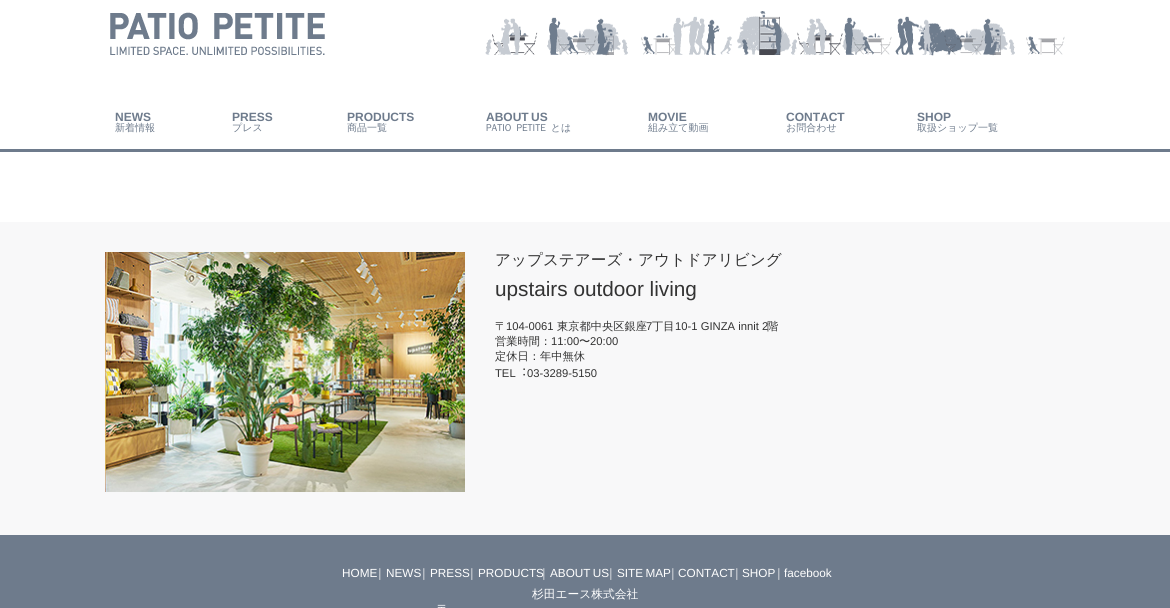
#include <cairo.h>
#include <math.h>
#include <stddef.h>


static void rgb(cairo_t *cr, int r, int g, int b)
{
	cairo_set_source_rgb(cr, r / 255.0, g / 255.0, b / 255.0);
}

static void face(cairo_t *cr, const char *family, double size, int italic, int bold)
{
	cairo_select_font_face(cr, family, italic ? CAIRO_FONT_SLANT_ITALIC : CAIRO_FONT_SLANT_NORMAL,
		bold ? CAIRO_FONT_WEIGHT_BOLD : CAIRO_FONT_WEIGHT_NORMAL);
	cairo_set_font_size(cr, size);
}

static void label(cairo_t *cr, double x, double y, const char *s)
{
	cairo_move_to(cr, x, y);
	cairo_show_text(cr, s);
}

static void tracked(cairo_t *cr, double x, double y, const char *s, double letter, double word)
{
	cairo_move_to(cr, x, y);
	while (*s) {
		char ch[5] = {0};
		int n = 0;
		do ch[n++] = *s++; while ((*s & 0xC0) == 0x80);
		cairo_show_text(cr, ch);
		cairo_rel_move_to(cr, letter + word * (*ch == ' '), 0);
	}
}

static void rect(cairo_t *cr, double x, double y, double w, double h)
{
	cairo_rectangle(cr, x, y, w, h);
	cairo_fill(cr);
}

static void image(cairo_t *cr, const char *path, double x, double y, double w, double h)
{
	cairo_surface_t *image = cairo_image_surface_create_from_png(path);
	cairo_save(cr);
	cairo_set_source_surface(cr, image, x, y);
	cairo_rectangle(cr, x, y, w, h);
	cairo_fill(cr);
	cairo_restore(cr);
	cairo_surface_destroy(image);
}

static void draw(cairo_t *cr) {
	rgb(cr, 255, 255, 255);
	cairo_paint(cr);
	image(cr, "image0.png", 110, 12, 215, 43);
	image(cr, "image1.png", 485, 11, 580, 45);
	rgb(cr, 110, 123, 140);
	rect(cr, 0, 149, 1170, 3);
	face(cr, "Liberation Sans", 12, 0, 1);
	label(cr, 115, 121, "NEWS");
	face(cr, "WenQuanYi Zen Hei Medium", 10, 0, 0);
	label(cr, 115, 131, "新着情報");
	face(cr, "Liberation Sans", 12, 0, 1);
	label(cr, 232, 121, "PRESS");
	face(cr, "WenQuanYi Zen Hei Medium", 10, 0, 0);
	label(cr, 232, 131, "プレス");
	face(cr, "Liberation Sans", 12, 0, 1);
	label(cr, 347, 121, "PRODUCTS");
	face(cr, "WenQuanYi Zen Hei Medium", 10, 0, 0);
	label(cr, 347, 131, "商品一覧");
	face(cr, "Liberation Sans", 12, 0, 1);
	tracked(cr, 486, 121, "ABOUT US", 0, -1);
	face(cr, "WenQuanYi Zen Hei Medium", 10, 0, 0);
	tracked(cr, 486, 131, "PATIO PETITE とは", 0, 2);
	face(cr, "Liberation Sans", 12, 0, 1);
	label(cr, 648, 121, "MOVIE");
	face(cr, "WenQuanYi Zen Hei Medium", 10, 0, 0);
	label(cr, 648, 131, "組み立て動画");
	face(cr, "Liberation Sans", 12, 0, 1);
	label(cr, 786, 121, "CONTACT");
	face(cr, "WenQuanYi Zen Hei Medium", 10, 0, 0);
	label(cr, 786, 131, "お問合わせ");
	face(cr, "Liberation Sans", 12, 0, 1);
	label(cr, 917, 121, "SHOP");
	face(cr, "WenQuanYi Zen Hei Medium", 10, 0, 0);
	label(cr, 917, 131, "取扱ショップ一覧");
	rgb(cr, 248, 248, 249);
	rect(cr, 0, 222, 1170, 313);
	image(cr, "image2.png", 105, 252, 360, 240);
	face(cr, "WenQuanYi Zen Hei Medium", 15.6, 0, 0);
	rgb(cr, 51, 51, 51);
	label(cr, 495, 265, "アップステアーズ・アウトドアリビング");
	face(cr, "Liberation Sans", 20.75, 0, 0);
	label(cr, 495, 296, "upstairs outdoor living");
	face(cr, "WenQuanYi Zen Hei Medium", 11.25, 0, 0);
	label(cr, 495, 330, "〒");
	face(cr, "Liberation Sans", 11.25, 0, 0);
	label(cr, 506, 330, "104-0061");
	face(cr, "WenQuanYi Zen Hei Medium", 11.25, 0, 0);
	label(cr, 557, 330, "東京都中央区銀座");
	face(cr, "Liberation Sans", 11.25, 0, 0);
	label(cr, 646, 330, "7");
	face(cr, "WenQuanYi Zen Hei Medium", 11.25, 0, 0);
	label(cr, 652, 330, "丁目");
	face(cr, "Liberation Sans", 11.25, 0, 0);
	label(cr, 675, 330, "10-1 GINZA innit 2");
	face(cr, "WenQuanYi Zen Hei Medium", 11.25, 0, 0);
	label(cr, 767, 330, "階");
	label(cr, 495, 345, "営業時間：");
	face(cr, "Liberation Sans", 11.25, 0, 0);
	label(cr, 551, 345, "11:00");
	face(cr, "WenQuanYi Zen Hei Medium", 11.25, 0, 0);
	label(cr, 579, 345, "〜");
	face(cr, "Liberation Sans", 11.25, 0, 0);
	label(cr, 590, 345, "20:00");
	face(cr, "WenQuanYi Zen Hei Medium", 11.25, 0, 0);
	label(cr, 495, 360, "定休日：年中無休");
	face(cr, "Liberation Sans", 11.25, 0, 0);
	label(cr, 495, 377, "TEL");
	face(cr, "Noto Sans CJK JP", 11.25, 0, 0);
	label(cr, 516, 377, "︓");
	face(cr, "Liberation Sans", 11.25, 0, 0);
	label(cr, 527, 377, "03-3289-5150");
	rgb(cr, 110, 123, 140);
	rect(cr, 0, 535, 1170, 73);
	face(cr, "Liberation Sans", 11.75, 0, 0);
	rgb(cr, 255, 255, 255);
	label(cr, 342, 577, "HOME");
	face(cr, "WenQuanYi Zen Hei Medium", 11.75, 0, 0);
	label(cr, 374, 577, "｜");
	face(cr, "Liberation Sans", 11.75, 0, 0);
	label(cr, 386, 577, "NEWS");
	face(cr, "WenQuanYi Zen Hei Medium", 11.75, 0, 0);
	label(cr, 418, 577, "｜");
	face(cr, "Liberation Sans", 11.75, 0, 0);
	label(cr, 430, 577, "PRESS");
	face(cr, "WenQuanYi Zen Hei Medium", 11.75, 0, 0);
	label(cr, 466, 577, "｜");
	face(cr, "Liberation Sans", 11.75, 0, 0);
	label(cr, 478, 577, "PRODUCTS");
	face(cr, "WenQuanYi Zen Hei Medium", 11.75, 0, 0);
	label(cr, 538, 577, "｜");
	face(cr, "Liberation Sans", 11.75, 0, 0);
	tracked(cr, 550, 577, "ABOUT US", 0, -1);
	face(cr, "WenQuanYi Zen Hei Medium", 11.75, 0, 0);
	label(cr, 605, 577, "｜");
	face(cr, "Liberation Sans", 11.75, 0, 0);
	tracked(cr, 617, 577, "SITE MAP", 0, -1);
	face(cr, "WenQuanYi Zen Hei Medium", 11.75, 0, 0);
	label(cr, 667, 577, "｜");
	face(cr, "Liberation Sans", 11.75, 0, 0);
	label(cr, 678, 577, "CONTACT");
	face(cr, "WenQuanYi Zen Hei Medium", 11.75, 0, 0);
	label(cr, 731, 577, "｜");
	face(cr, "Liberation Sans", 11.75, 0, 0);
	label(cr, 742, 577, "SHOP");
	face(cr, "WenQuanYi Zen Hei Medium", 11.75, 0, 0);
	label(cr, 773, 577, "｜");
	face(cr, "Liberation Sans", 11.75, 0, 0);
	label(cr, 784, 577, "facebook");
	face(cr, "WenQuanYi Zen Hei Medium", 11.75, 0, 0);
	label(cr, 532, 598, "杉田エース株式会社");
	label(cr, 437, 613, "〒");
}

int main(void) {
	cairo_surface_t *surface = cairo_image_surface_create(CAIRO_FORMAT_RGB24, 1170, 608);
	cairo_t *cr = cairo_create(surface);
	cairo_font_options_t *options = cairo_font_options_create();
	cairo_font_options_set_hint_metrics(options, CAIRO_HINT_METRICS_OFF);
	cairo_font_options_set_hint_style(options, CAIRO_HINT_STYLE_NONE);
	cairo_set_font_options(cr, options);
	cairo_set_miter_limit(cr, 4);
	draw(cr);
	cairo_surface_write_to_png(surface, "render.png");
	cairo_font_options_destroy(options);
	cairo_destroy(cr);
	cairo_surface_destroy(surface);
	return 0;
}
